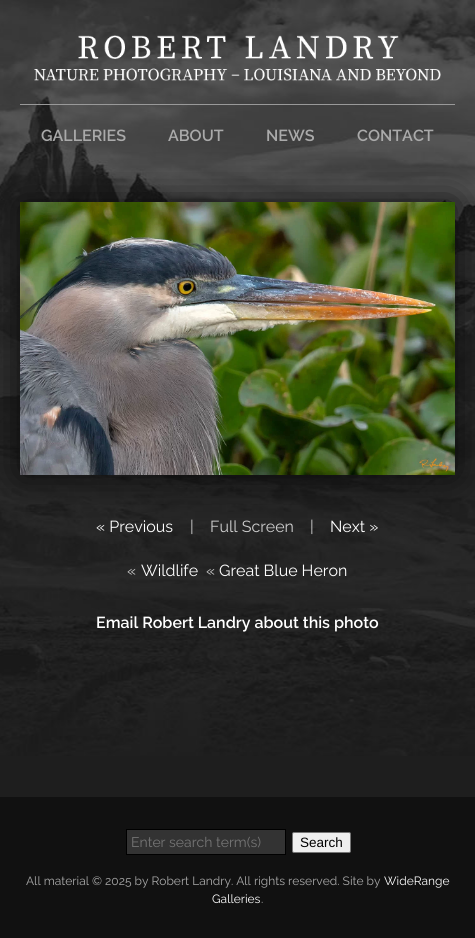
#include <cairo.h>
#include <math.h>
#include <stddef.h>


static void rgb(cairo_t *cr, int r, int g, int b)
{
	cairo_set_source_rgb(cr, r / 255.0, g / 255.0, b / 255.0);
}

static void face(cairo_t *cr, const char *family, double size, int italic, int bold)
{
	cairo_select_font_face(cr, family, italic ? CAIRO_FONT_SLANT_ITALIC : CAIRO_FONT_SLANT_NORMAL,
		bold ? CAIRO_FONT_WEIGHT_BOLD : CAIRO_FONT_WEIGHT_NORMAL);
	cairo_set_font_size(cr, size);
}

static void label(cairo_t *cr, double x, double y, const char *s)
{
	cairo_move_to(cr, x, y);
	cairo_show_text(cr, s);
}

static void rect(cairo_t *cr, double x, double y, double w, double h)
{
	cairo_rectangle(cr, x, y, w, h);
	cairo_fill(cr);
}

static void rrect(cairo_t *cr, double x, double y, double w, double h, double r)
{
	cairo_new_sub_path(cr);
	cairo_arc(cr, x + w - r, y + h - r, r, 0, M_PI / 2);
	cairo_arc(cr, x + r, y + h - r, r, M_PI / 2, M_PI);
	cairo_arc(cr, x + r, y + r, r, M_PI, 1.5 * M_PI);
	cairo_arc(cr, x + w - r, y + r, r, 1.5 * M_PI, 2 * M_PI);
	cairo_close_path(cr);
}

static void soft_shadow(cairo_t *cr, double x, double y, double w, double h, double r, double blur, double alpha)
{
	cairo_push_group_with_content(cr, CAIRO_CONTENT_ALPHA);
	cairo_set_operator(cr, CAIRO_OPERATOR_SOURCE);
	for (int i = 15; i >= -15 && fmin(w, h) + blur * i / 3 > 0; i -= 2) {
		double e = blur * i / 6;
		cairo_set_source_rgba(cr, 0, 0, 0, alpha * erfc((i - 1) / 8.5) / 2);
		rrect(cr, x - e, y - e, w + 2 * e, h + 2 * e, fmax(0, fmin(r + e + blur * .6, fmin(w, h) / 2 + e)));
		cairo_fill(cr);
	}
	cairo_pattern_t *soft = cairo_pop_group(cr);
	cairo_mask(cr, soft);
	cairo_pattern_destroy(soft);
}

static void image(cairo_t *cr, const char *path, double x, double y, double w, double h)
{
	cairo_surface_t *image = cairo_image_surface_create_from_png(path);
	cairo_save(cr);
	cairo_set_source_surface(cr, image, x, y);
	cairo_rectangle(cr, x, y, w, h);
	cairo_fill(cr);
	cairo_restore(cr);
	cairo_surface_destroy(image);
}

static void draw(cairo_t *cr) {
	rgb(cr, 30, 30, 30);
	cairo_paint(cr);
	image(cr, "image0.png", 0, 0, 475, 756);
	image(cr, "image1.png", 34, 35, 407, 46);
	rgb(cr, 153, 153, 153);
	rect(cr, 20, 104, 435, 1);
	face(cr, "Raleway SemiBold", 16, 0, 0);
	rgb(cr, 170, 170, 170);
	label(cr, 41, 141, "GALLERIES");
	label(cr, 168, 141, "ABOUT");
	label(cr, 266, 141, "NEWS");
	label(cr, 357, 141, "CONTACT");
	rgb(cr, 0, 0, 0);
	soft_shadow(cr, 20, 202, 435, 273, 0, 20, 0.8);
	image(cr, "image2.png", 20, 202, 435, 273);
	face(cr, "Raleway", 16, 0, 0);
	rgb(cr, 255, 255, 255);
	label(cr, 96, 532, "« Previous");
	rgb(cr, 204, 204, 204);
	label(cr, 190, 532, "|");
	label(cr, 210, 532, "Full Screen");
	label(cr, 310, 532, "|");
	rgb(cr, 255, 255, 255);
	label(cr, 330, 532, "Next »");
	rgb(cr, 204, 204, 204);
	label(cr, 127, 576, "«");
	rgb(cr, 255, 255, 255);
	label(cr, 141, 576, "Wildlife");
	rgb(cr, 204, 204, 204);
	label(cr, 206, 576, "«");
	rgb(cr, 255, 255, 255);
	label(cr, 219, 576, "Great Blue Heron");
	face(cr, "Raleway SemiBold", 16, 0, 0);
	label(cr, 96, 628, "Email Robert Landry about this photo");
	rgb(cr, 17, 17, 17);
	rect(cr, 0, 797, 475, 141);
	rgb(cr, 51, 51, 51);
	cairo_rectangle(cr, 126.5, 829.5, 159, 25);
	cairo_fill_preserve(cr);
	rgb(cr, 0, 0, 0);
	cairo_set_line_width(cr, 1);
	cairo_stroke(cr);
	face(cr, "Raleway", 14, 0, 0);
	rgb(cr, 117, 117, 117);
	label(cr, 131, 847, "Enter search term(s)");
	rgb(cr, 239, 239, 239);
	rrect(cr, 292.5, 832.5, 58, 20, 1.5);
	cairo_fill_preserve(cr);
	rgb(cr, 118, 118, 118);
	cairo_stroke(cr);
	face(cr, "Liberation Sans", 13.5, 0, 0);
	rgb(cr, 0, 0, 0);
	label(cr, 300, 847, "Search");
	face(cr, "Raleway", 12, 0, 0);
	rgb(cr, 170, 170, 170);
	label(cr, 26, 885, "All material © 2025 by Robert Landry. All rights reserved. Site by");
	rgb(cr, 255, 255, 255);
	label(cr, 384, 885, "WideRange");
	label(cr, 212, 903, "Galleries");
	rgb(cr, 170, 170, 170);
	label(cr, 261, 903, ".");
}

int main(void) {
	cairo_surface_t *surface = cairo_image_surface_create(CAIRO_FORMAT_RGB24, 475, 938);
	cairo_t *cr = cairo_create(surface);
	cairo_font_options_t *options = cairo_font_options_create();
	cairo_font_options_set_hint_metrics(options, CAIRO_HINT_METRICS_OFF);
	cairo_font_options_set_hint_style(options, CAIRO_HINT_STYLE_NONE);
	cairo_set_font_options(cr, options);
	cairo_set_miter_limit(cr, 4);
	draw(cr);
	cairo_surface_write_to_png(surface, "render.png");
	cairo_font_options_destroy(options);
	cairo_destroy(cr);
	cairo_surface_destroy(surface);
	return 0;
}
